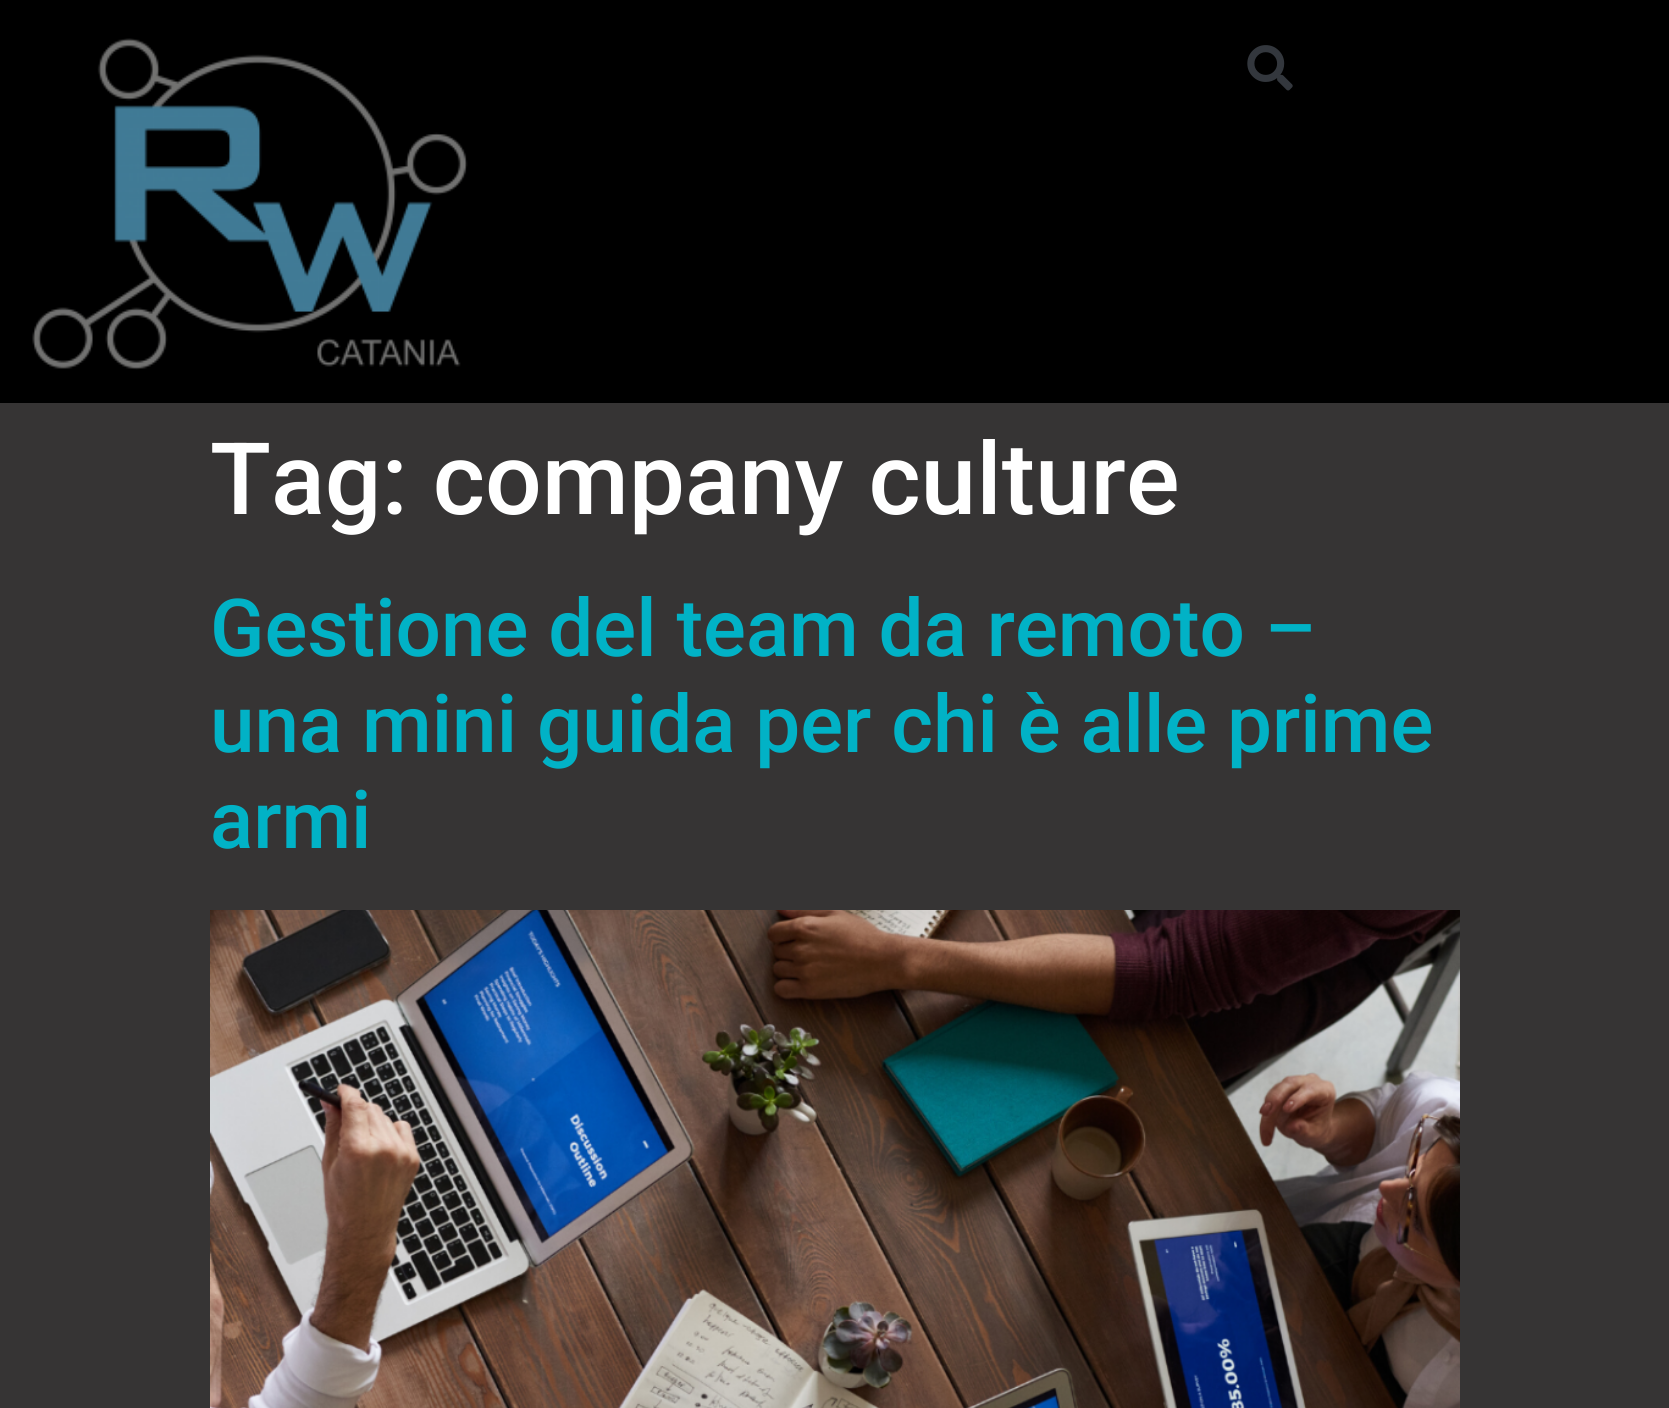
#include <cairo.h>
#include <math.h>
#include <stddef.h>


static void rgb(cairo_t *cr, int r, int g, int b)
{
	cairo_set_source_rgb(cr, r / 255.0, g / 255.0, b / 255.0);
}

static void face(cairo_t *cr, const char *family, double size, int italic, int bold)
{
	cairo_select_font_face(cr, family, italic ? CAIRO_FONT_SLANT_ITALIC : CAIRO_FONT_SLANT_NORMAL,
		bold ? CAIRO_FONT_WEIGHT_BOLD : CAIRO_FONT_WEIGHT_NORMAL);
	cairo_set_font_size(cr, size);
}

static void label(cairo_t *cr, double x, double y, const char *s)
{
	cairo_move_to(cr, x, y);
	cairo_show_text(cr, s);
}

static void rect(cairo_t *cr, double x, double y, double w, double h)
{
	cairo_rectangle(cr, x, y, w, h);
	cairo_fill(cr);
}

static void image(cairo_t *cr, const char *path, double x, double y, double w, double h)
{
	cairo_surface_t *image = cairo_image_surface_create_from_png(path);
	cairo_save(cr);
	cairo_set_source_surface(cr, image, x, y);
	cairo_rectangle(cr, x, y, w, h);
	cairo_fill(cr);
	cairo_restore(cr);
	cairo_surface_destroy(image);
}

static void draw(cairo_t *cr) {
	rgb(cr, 54, 52, 52);
	cairo_paint(cr);
	rgb(cr, 0, 0, 0);
	rect(cr, 0, 0, 1669, 403);
	image(cr, "image0.png", 32, 38, 436, 332);
	image(cr, "image1.png", 1247, 45, 46, 46);
	face(cr, "Roboto Medium", 100, 0, 0);
	rgb(cr, 255, 255, 255);
	label(cr, 210, 514, "Tag: company culture");
	face(cr, "Roboto Medium", 80, 0, 0);
	rgb(cr, 1, 178, 198);
	label(cr, 210, 656, "Gestione del team da remoto –");
	label(cr, 210, 752, "una mini guida per chi è alle prime");
	label(cr, 210, 848, "armi");
	image(cr, "image2.png", 210, 910, 1250, 498);
}

int main(void) {
	cairo_surface_t *surface = cairo_image_surface_create(CAIRO_FORMAT_RGB24, 1669, 1408);
	cairo_t *cr = cairo_create(surface);
	cairo_font_options_t *options = cairo_font_options_create();
	cairo_font_options_set_hint_metrics(options, CAIRO_HINT_METRICS_OFF);
	cairo_font_options_set_hint_style(options, CAIRO_HINT_STYLE_NONE);
	cairo_set_font_options(cr, options);
	cairo_set_miter_limit(cr, 4);
	draw(cr);
	cairo_surface_write_to_png(surface, "render.png");
	cairo_font_options_destroy(options);
	cairo_destroy(cr);
	cairo_surface_destroy(surface);
	return 0;
}
